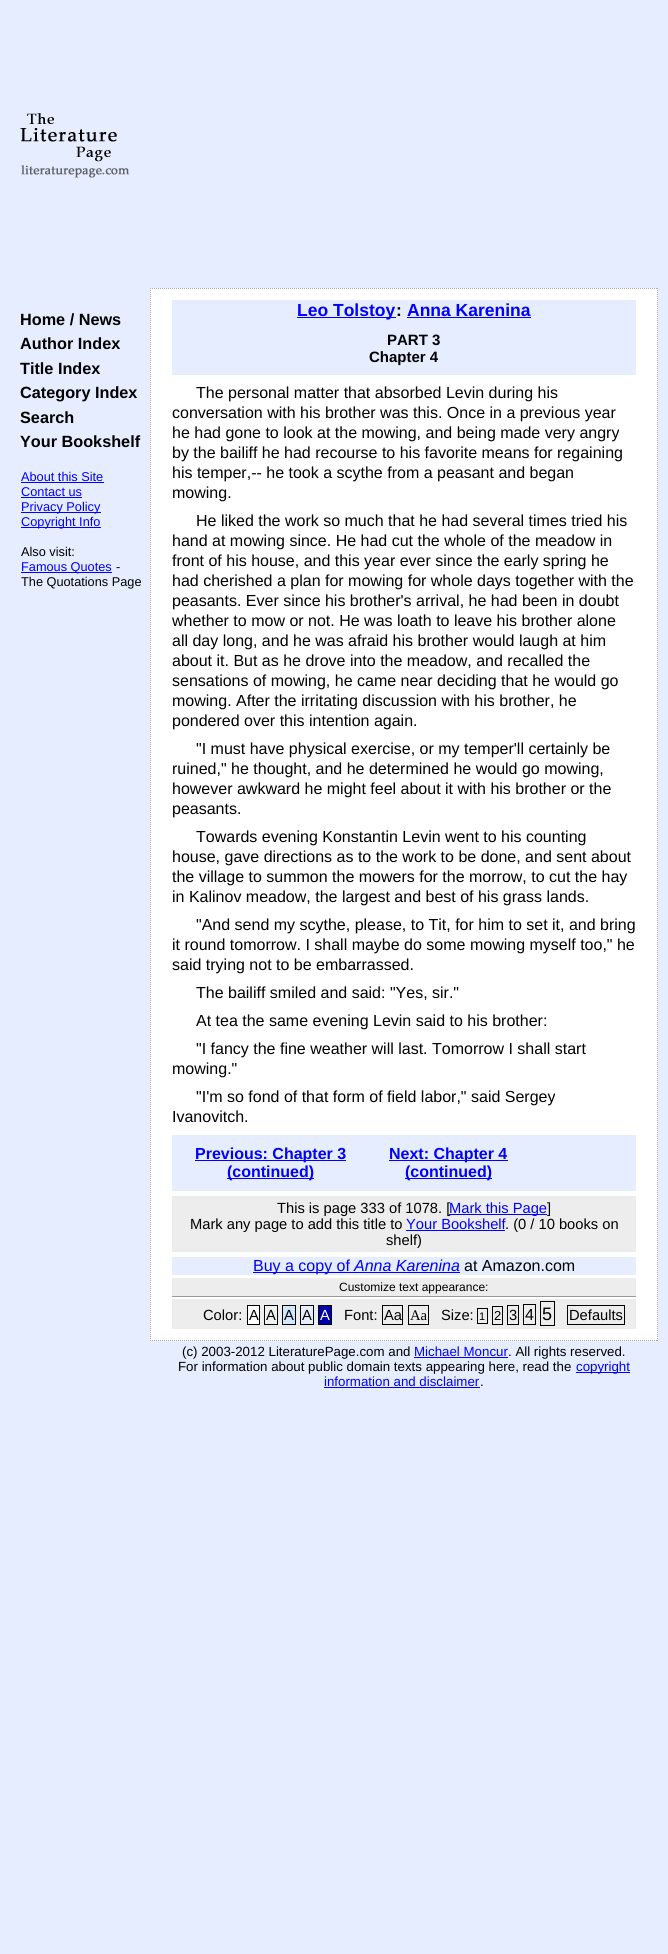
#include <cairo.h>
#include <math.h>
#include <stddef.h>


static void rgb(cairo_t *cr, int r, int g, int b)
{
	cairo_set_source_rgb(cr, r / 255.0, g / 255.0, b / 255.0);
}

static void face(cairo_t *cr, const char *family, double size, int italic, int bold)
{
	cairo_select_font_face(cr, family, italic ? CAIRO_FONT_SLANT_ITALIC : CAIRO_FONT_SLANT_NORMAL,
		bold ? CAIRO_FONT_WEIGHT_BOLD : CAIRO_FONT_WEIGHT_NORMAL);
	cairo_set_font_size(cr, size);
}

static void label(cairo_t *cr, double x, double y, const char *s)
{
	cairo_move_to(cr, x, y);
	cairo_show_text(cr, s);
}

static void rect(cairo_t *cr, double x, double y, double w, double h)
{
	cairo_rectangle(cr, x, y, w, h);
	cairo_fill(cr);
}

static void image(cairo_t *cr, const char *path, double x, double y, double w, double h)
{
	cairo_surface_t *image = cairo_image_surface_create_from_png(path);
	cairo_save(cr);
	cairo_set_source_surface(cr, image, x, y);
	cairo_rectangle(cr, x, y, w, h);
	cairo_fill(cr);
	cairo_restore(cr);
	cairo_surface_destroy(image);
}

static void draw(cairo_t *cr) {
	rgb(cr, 230, 237, 255);
	cairo_paint(cr);
	image(cr, "image0.png", 20, 113, 110, 65);
	face(cr, "Liberation Sans", 16.25, 0, 1);
	rgb(cr, 0, 0, 0);
	label(cr, 20, 325, "Home / News");
	label(cr, 20, 349, "Author Index");
	label(cr, 20, 374, "Title Index");
	label(cr, 20, 398, "Category Index");
	label(cr, 20, 423, "Search");
	label(cr, 20, 447, "Your Bookshelf");
	face(cr, "Liberation Sans", 12.75, 0, 0);
	rgb(cr, 0, 0, 255);
	label(cr, 21, 481, "About this Site");
	rect(cr, 21, 482, 83, 1);
	label(cr, 21, 496, "Contact us");
	rect(cr, 21, 497, 61, 1);
	rect(cr, 21, 512, 80, 1);
	label(cr, 21, 511, "Privacy Policy");
	rect(cr, 21, 527, 80, 1);
	label(cr, 21, 526, "Copyright Info");
	rgb(cr, 0, 0, 0);
	label(cr, 21, 556, "Also visit:");
	rgb(cr, 0, 0, 255);
	rect(cr, 21, 572, 91, 1);
	label(cr, 21, 571, "Famous Quotes");
	rgb(cr, 0, 0, 0);
	label(cr, 116, 571, "-");
	label(cr, 21, 586, "The Quotations Page");
	rgb(cr, 255, 255, 255);
	rect(cr, 150, 288, 508, 1053);
	cairo_new_path(cr);
	cairo_move_to(cr, 150, 288.5);
	cairo_line_to(cr, 658, 288.5);
	rgb(cr, 166, 173, 159);
	cairo_set_line_width(cr, 1);
	cairo_set_dash(cr, (double[]){1, 1}, 2, 0);
	cairo_stroke(cr);
	cairo_new_path(cr);
	cairo_move_to(cr, 657.5, 288);
	cairo_line_to(cr, 657.5, 1341);
	cairo_stroke(cr);
	cairo_new_path(cr);
	cairo_move_to(cr, 150, 1340.5);
	cairo_line_to(cr, 658, 1340.5);
	cairo_stroke(cr);
	cairo_new_path(cr);
	cairo_move_to(cr, 150.5, 288);
	cairo_line_to(cr, 150.5, 1341);
	cairo_stroke(cr);
	rgb(cr, 230, 237, 255);
	rect(cr, 172, 300, 464, 75);
	rgb(cr, 0, 0, 255);
	rect(cr, 297, 317, 99, 1);
	face(cr, "Liberation Sans", 17.5, 0, 1);
	label(cr, 297, 316, "Leo Tolstoy");
	rgb(cr, 0, 0, 0);
	label(cr, 396, 316, ":");
	rgb(cr, 0, 0, 255);
	label(cr, 407, 316, "Anna Karenina");
	rect(cr, 407, 317, 124, 1);
	face(cr, "Liberation Sans", 15, 0, 1);
	rgb(cr, 0, 0, 0);
	label(cr, 387, 345, "PART 3");
	label(cr, 369, 362, "Chapter 4");
	face(cr, "Liberation Sans", 16, 0, 0);
	label(cr, 196, 398, "The personal matter that absorbed Levin during his");
	label(cr, 172, 418, "conversation with his brother was this. Once in a previous year");
	label(cr, 172, 438, "he had gone to look at the mowing, and being made very angry");
	label(cr, 172, 458, "by the bailiff he had recourse to his favorite means for regaining");
	label(cr, 172, 478, "his temper,-- he took a scythe from a peasant and began");
	label(cr, 172, 498, "mowing.");
	label(cr, 196, 526, "He liked the work so much that he had several times tried his");
	label(cr, 172, 546, "hand at mowing since. He had cut the whole of the meadow in");
	label(cr, 172, 566, "front of his house, and this year ever since the early spring he");
	label(cr, 172, 586, "had cherished a plan for mowing for whole days together with the");
	label(cr, 172, 606, "peasants. Ever since his brother's arrival, he had been in doubt");
	label(cr, 172, 626, "whether to mow or not. He was loath to leave his brother alone");
	label(cr, 172, 646, "all day long, and he was afraid his brother would laugh at him");
	label(cr, 172, 666, "about it. But as he drove into the meadow, and recalled the");
	label(cr, 172, 686, "sensations of mowing, he came near deciding that he would go");
	label(cr, 172, 706, "mowing. After the irritating discussion with his brother, he");
	label(cr, 172, 726, "pondered over this intention again.");
	label(cr, 196, 754, "\"I must have physical exercise, or my temper'll certainly be");
	label(cr, 172, 774, "ruined,\" he thought, and he determined he would go mowing,");
	label(cr, 172, 794, "however awkward he might feel about it with his brother or the");
	label(cr, 172, 814, "peasants.");
	label(cr, 196, 842, "Towards evening Konstantin Levin went to his counting");
	label(cr, 172, 862, "house, gave directions as to the work to be done, and sent about");
	label(cr, 172, 882, "the village to summon the mowers for the morrow, to cut the hay");
	label(cr, 172, 902, "in Kalinov meadow, the largest and best of his grass lands.");
	label(cr, 196, 930, "\"And send my scythe, please, to Tit, for him to set it, and bring");
	label(cr, 172, 950, "it round tomorrow. I shall maybe do some mowing myself too,\" he");
	label(cr, 172, 970, "said trying not to be embarrassed.");
	label(cr, 196, 998, "The bailiff smiled and said: \"Yes, sir.\"");
	label(cr, 196, 1026, "At tea the same evening Levin said to his brother:");
	label(cr, 196, 1054, "\"I fancy the fine weather will last. Tomorrow I shall start");
	label(cr, 172, 1074, "mowing.\"");
	label(cr, 196, 1102, "\"I'm so fond of that form of field labor,\" said Sergey");
	label(cr, 172, 1122, "Ivanovitch.");
	rgb(cr, 230, 237, 255);
	rect(cr, 172, 1135, 464, 56);
	rgb(cr, 0, 0, 255);
	rect(cr, 195, 1160, 151, 1);
	face(cr, "Liberation Sans", 16, 0, 1);
	label(cr, 195, 1159, "Previous: Chapter 3");
	rect(cr, 227, 1178, 87, 1);
	label(cr, 227, 1177, "(continued)");
	rect(cr, 389, 1160, 119, 1);
	label(cr, 389, 1159, "Next: Chapter 4");
	rect(cr, 405, 1178, 87, 1);
	label(cr, 405, 1177, "(continued)");
	rgb(cr, 237, 237, 237);
	rect(cr, 172, 1196, 464, 56);
	face(cr, "Liberation Sans", 14.7, 0, 0);
	rgb(cr, 0, 0, 0);
	label(cr, 277, 1213, "This is page 333 of 1078. [");
	rgb(cr, 0, 0, 255);
	rect(cr, 449, 1214, 98, 1);
	label(cr, 449, 1213, "Mark this Page");
	rgb(cr, 0, 0, 0);
	label(cr, 547, 1213, "]");
	label(cr, 190, 1229, "Mark any page to add this title to");
	rgb(cr, 0, 0, 255);
	label(cr, 406, 1229, "Your Bookshelf");
	rect(cr, 406, 1230, 99, 1);
	rgb(cr, 0, 0, 0);
	label(cr, 505, 1229, ". (0 / 10 books on");
	label(cr, 386, 1245, "shelf)");
	rgb(cr, 230, 237, 255);
	rect(cr, 172, 1257, 464, 18);
	rgb(cr, 0, 0, 255);
	rect(cr, 253, 1272, 207, 1);
	face(cr, "Liberation Sans", 16, 0, 0);
	label(cr, 253, 1271, "Buy a copy of");
	face(cr, "Liberation Sans", 16, 1, 0);
	label(cr, 354, 1271, "Anna Karenina");
	face(cr, "Liberation Sans", 16, 0, 0);
	rgb(cr, 0, 0, 0);
	label(cr, 464, 1271, "at Amazon.com");
	rgb(cr, 237, 237, 237);
	rect(cr, 172, 1278, 464, 18);
	rgb(cr, 153, 153, 153);
	rect(cr, 172, 1296, 464, 1);
	face(cr, "Liberation Sans", 12, 0, 0);
	rgb(cr, 0, 0, 0);
	label(cr, 339, 1291, "Customize text appearance:");
	rgb(cr, 237, 237, 237);
	rect(cr, 172, 1299, 464, 30);
	face(cr, "Liberation Sans", 14.7, 0, 0);
	rgb(cr, 0, 0, 0);
	label(cr, 203, 1320, "Color:");
	rgb(cr, 255, 255, 255);
	cairo_rectangle(cr, 247.5, 1305.5, 12, 19);
	cairo_fill_preserve(cr);
	rgb(cr, 0, 0, 0);
	cairo_set_dash(cr, NULL, 0, 0);
	cairo_stroke(cr);
	label(cr, 249, 1320, "A");
	rgb(cr, 240, 240, 240);
	cairo_rectangle(cr, 264.5, 1305.5, 13, 19);
	cairo_fill_preserve(cr);
	rgb(cr, 0, 0, 0);
	cairo_stroke(cr);
	label(cr, 266, 1320, "A");
	rgb(cr, 206, 231, 255);
	cairo_rectangle(cr, 282.5, 1305.5, 13, 19);
	cairo_fill_preserve(cr);
	rgb(cr, 0, 0, 0);
	cairo_stroke(cr);
	label(cr, 284, 1320, "A");
	rgb(cr, 230, 237, 255);
	cairo_rectangle(cr, 300.5, 1305.5, 13, 19);
	cairo_fill_preserve(cr);
	rgb(cr, 0, 0, 0);
	cairo_stroke(cr);
	label(cr, 302, 1320, "A");
	rgb(cr, 0, 0, 170);
	cairo_rectangle(cr, 318.5, 1305.5, 13, 19);
	cairo_fill_preserve(cr);
	rgb(cr, 0, 0, 0);
	cairo_stroke(cr);
	rgb(cr, 255, 255, 255);
	label(cr, 320, 1320, "A");
	rgb(cr, 0, 0, 0);
	label(cr, 344, 1320, "Font:");
	cairo_rectangle(cr, 382.5, 1305.5, 20, 19);
	cairo_stroke(cr);
	label(cr, 384, 1320, "Aa");
	cairo_rectangle(cr, 408.5, 1305.5, 20, 19);
	cairo_stroke(cr);
	face(cr, "Liberation Serif", 14.7, 0, 0);
	label(cr, 410, 1320, "Aa");
	face(cr, "Liberation Sans", 14.7, 0, 0);
	label(cr, 441, 1320, "Size:");
	cairo_rectangle(cr, 477.5, 1308.5, 10, 15);
	cairo_stroke(cr);
	face(cr, "Liberation Sans", 11, 0, 0);
	label(cr, 479, 1320, "1");
	cairo_rectangle(cr, 492.5, 1306.5, 10, 18);
	cairo_stroke(cr);
	face(cr, "Liberation Sans", 13, 0, 0);
	label(cr, 494, 1320, "2");
	cairo_rectangle(cr, 507.5, 1305.5, 11, 19);
	cairo_stroke(cr);
	face(cr, "Liberation Sans", 14.7, 0, 0);
	label(cr, 509, 1320, "3");
	cairo_rectangle(cr, 523.5, 1304.5, 12, 20);
	cairo_stroke(cr);
	face(cr, "Liberation Sans", 16, 0, 0);
	label(cr, 525, 1320, "4");
	cairo_rectangle(cr, 540.5, 1301.5, 14, 24);
	cairo_stroke(cr);
	face(cr, "Liberation Sans", 18, 0, 0);
	label(cr, 542, 1320, "5");
	cairo_rectangle(cr, 567.5, 1305.5, 57, 19);
	cairo_stroke(cr);
	face(cr, "Liberation Sans", 14.7, 0, 0);
	label(cr, 569, 1320, "Defaults");
	face(cr, "Liberation Sans", 13.3, 0, 0);
	label(cr, 182, 1356, "(c) 2003-2012 LiteraturePage.com and");
	rgb(cr, 0, 0, 255);
	label(cr, 414, 1356, "Michael Moncur");
	rgb(cr, 0, 0, 0);
	label(cr, 508, 1356, ". All rights reserved.");
	rgb(cr, 0, 0, 255);
	rect(cr, 414, 1357, 94, 1);
	rgb(cr, 0, 0, 0);
	label(cr, 178, 1371, "For information about public domain texts appearing here, read the");
	rgb(cr, 0, 0, 255);
	rect(cr, 576, 1372, 54, 1);
	label(cr, 576, 1371, "copyright");
	label(cr, 324, 1386, "information and disclaimer");
	rgb(cr, 0, 0, 0);
	label(cr, 480, 1386, ".");
	rgb(cr, 0, 0, 255);
	rect(cr, 324, 1387, 156, 1);
}

int main(void) {
	cairo_surface_t *surface = cairo_image_surface_create(CAIRO_FORMAT_RGB24, 668, 1954);
	cairo_t *cr = cairo_create(surface);
	cairo_font_options_t *options = cairo_font_options_create();
	cairo_font_options_set_hint_metrics(options, CAIRO_HINT_METRICS_OFF);
	cairo_font_options_set_hint_style(options, CAIRO_HINT_STYLE_NONE);
	cairo_set_font_options(cr, options);
	cairo_set_miter_limit(cr, 4);
	draw(cr);
	cairo_surface_write_to_png(surface, "render.png");
	cairo_font_options_destroy(options);
	cairo_destroy(cr);
	cairo_surface_destroy(surface);
	return 0;
}
